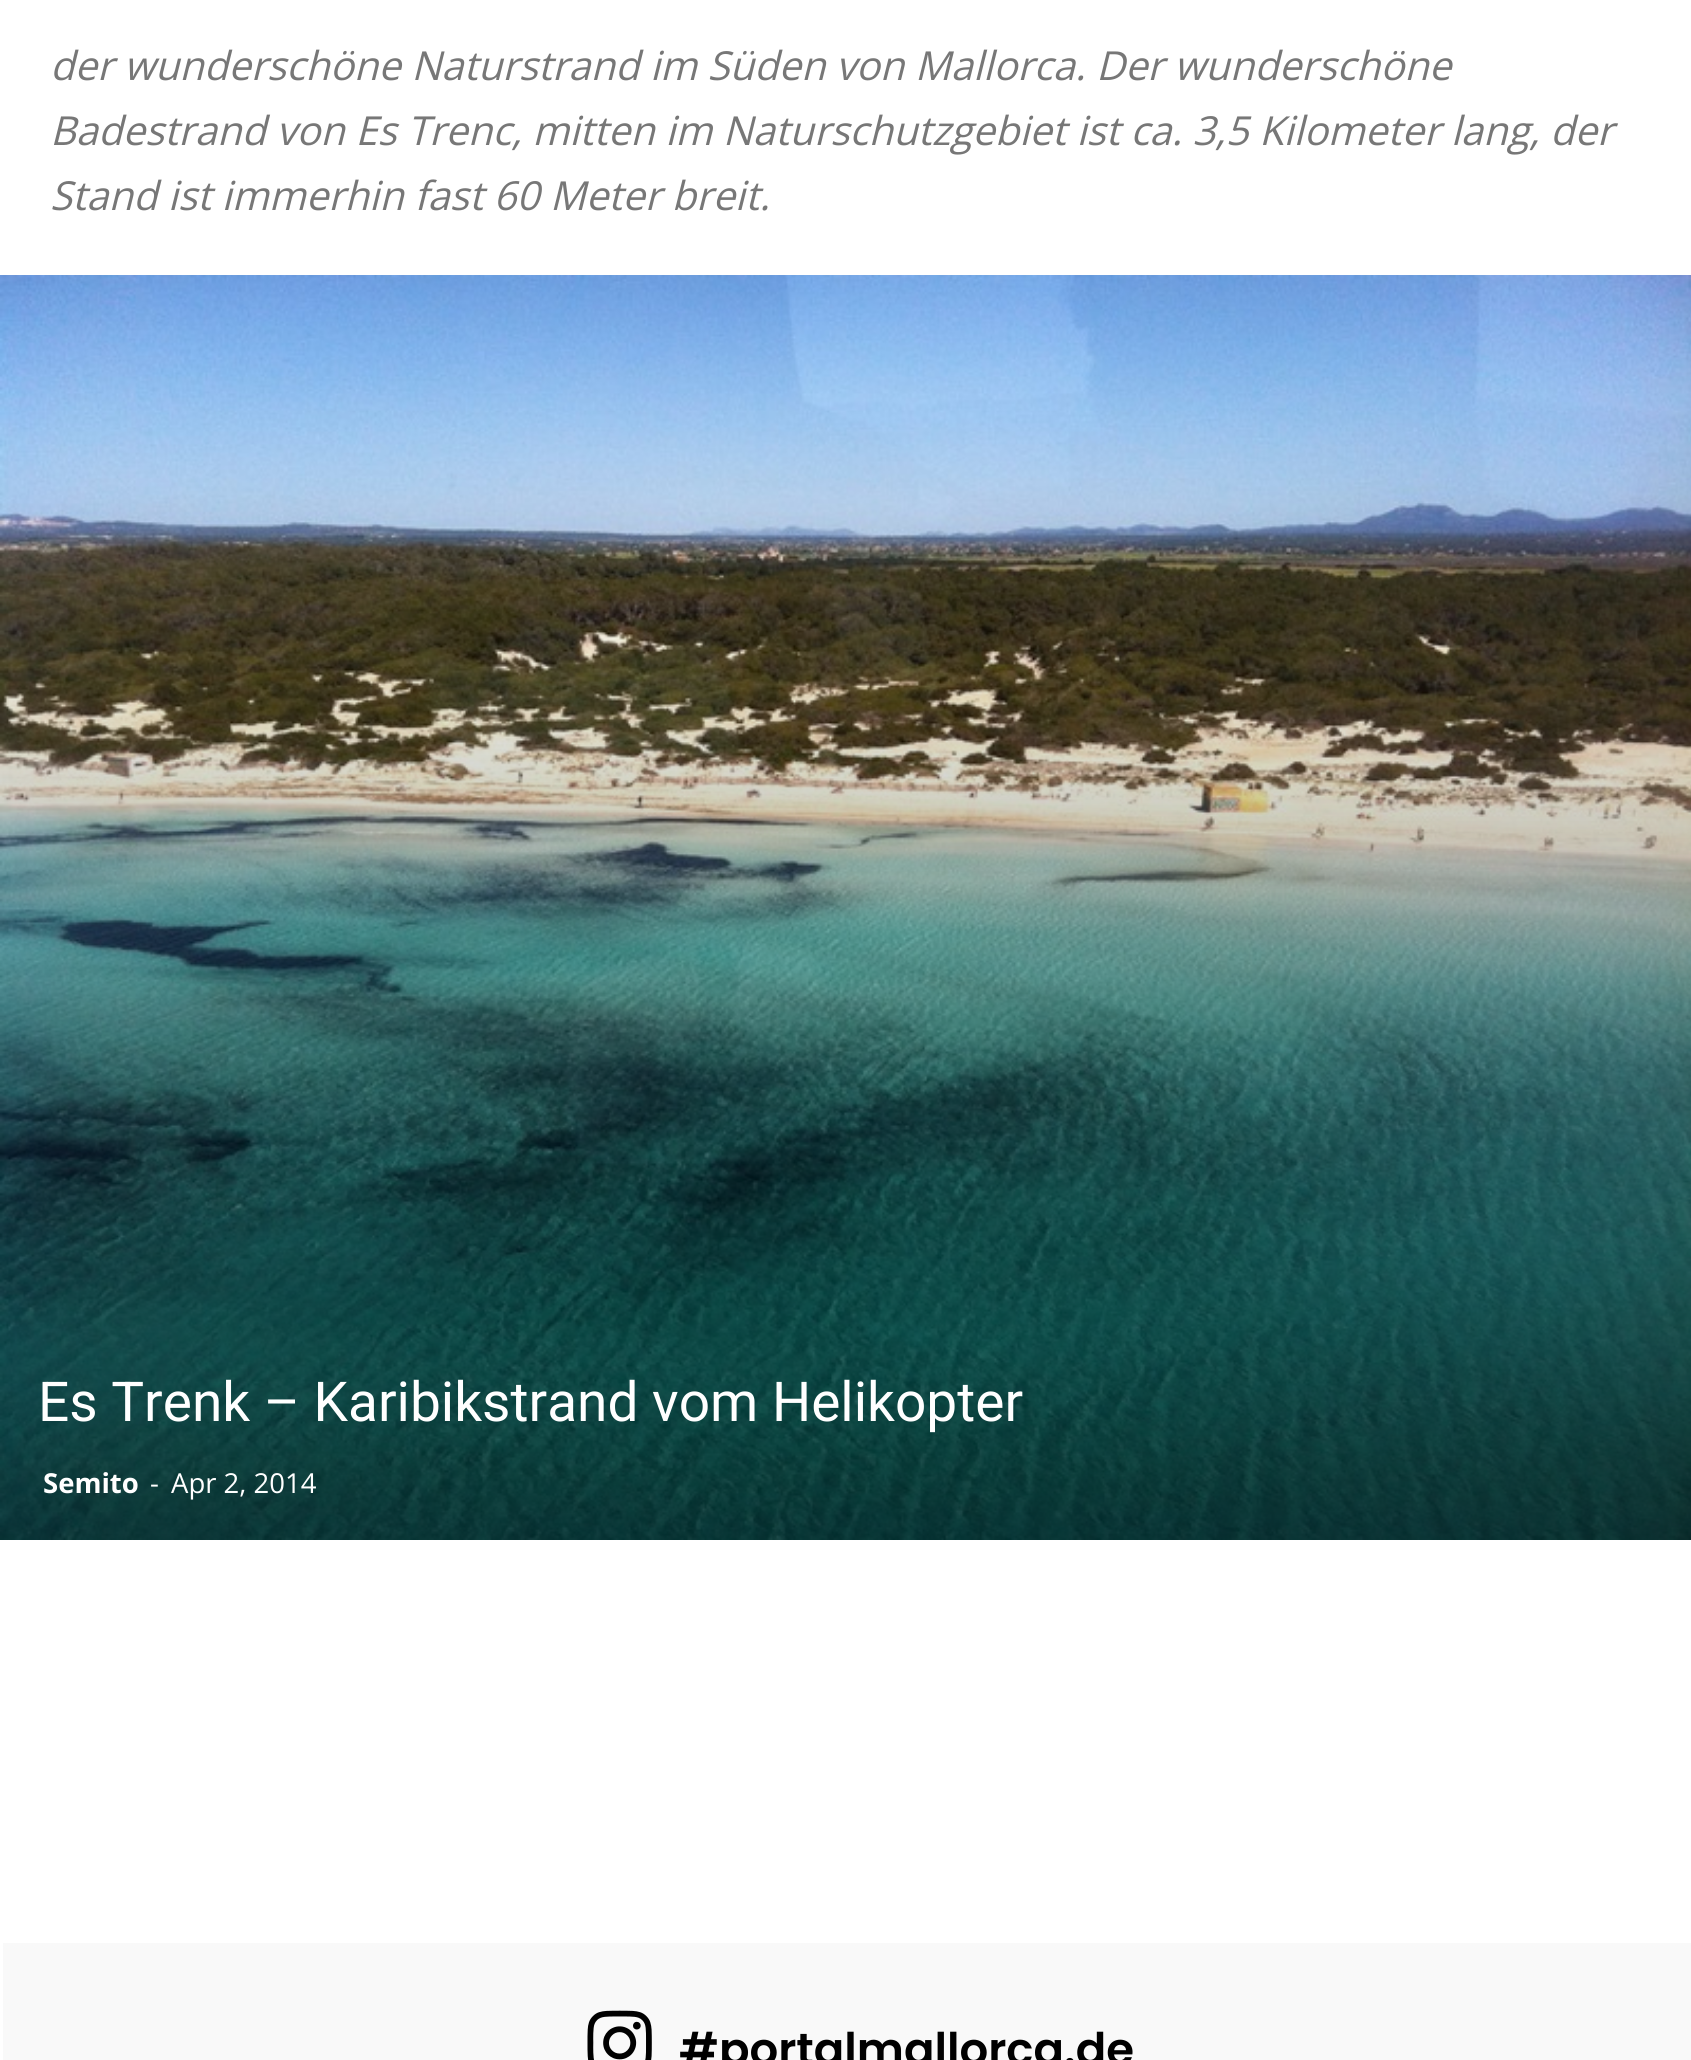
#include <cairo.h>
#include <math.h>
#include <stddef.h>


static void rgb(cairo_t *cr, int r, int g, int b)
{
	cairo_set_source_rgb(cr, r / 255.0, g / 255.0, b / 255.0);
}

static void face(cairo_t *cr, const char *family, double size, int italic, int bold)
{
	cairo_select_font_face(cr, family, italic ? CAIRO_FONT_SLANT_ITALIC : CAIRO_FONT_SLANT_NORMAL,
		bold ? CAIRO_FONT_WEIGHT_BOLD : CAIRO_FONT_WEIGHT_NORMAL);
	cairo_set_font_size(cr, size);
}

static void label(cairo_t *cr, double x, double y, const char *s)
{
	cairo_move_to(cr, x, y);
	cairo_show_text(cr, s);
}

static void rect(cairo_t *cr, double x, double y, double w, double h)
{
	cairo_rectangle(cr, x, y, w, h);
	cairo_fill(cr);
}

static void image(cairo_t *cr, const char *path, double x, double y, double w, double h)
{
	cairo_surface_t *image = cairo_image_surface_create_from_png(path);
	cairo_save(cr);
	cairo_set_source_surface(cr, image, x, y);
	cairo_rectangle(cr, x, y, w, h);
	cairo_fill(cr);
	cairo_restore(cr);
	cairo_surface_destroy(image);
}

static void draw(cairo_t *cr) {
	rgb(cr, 255, 255, 255);
	cairo_paint(cr);
	face(cr, "Open Sans", 40, 1, 0);
	rgb(cr, 119, 119, 119);
	label(cr, 50, 80, "der wunderschöne Naturstrand im Süden von Mallorca. Der wunderschöne");
	label(cr, 50, 145, "Badestrand von Es Trenc, mitten im Naturschutzgebiet ist ca. 3,5 Kilometer lang, der");
	label(cr, 50, 210, "Stand ist immerhin fast 60 Meter breit.");
	image(cr, "image0.png", 0, 275, 1691, 1265);
	face(cr, "Roboto", 55, 0, 0);
	rgb(cr, 255, 255, 255);
	label(cr, 38, 1421, "Es Trenk – Karibikstrand vom Helikopter");
	face(cr, "Open Sans", 27.5, 0, 1);
	label(cr, 43, 1493, "Semito");
	face(cr, "Open Sans", 27.5, 0, 0);
	label(cr, 150, 1493, "-");
	label(cr, 171, 1493, "Apr 2, 2014");
	rgb(cr, 249, 249, 249);
	rect(cr, 3, 1943, 1688, 117);
	image(cr, "image1.png", 587, 2010, 65, 50);
	face(cr, "Poppins SemiBold", 45, 0, 0);
	rgb(cr, 0, 0, 0);
	label(cr, 679, 2065, "#portalmallorca.de");
}

int main(void) {
	cairo_surface_t *surface = cairo_image_surface_create(CAIRO_FORMAT_RGB24, 1691, 2060);
	cairo_t *cr = cairo_create(surface);
	cairo_font_options_t *options = cairo_font_options_create();
	cairo_font_options_set_hint_metrics(options, CAIRO_HINT_METRICS_OFF);
	cairo_font_options_set_hint_style(options, CAIRO_HINT_STYLE_NONE);
	cairo_set_font_options(cr, options);
	cairo_set_miter_limit(cr, 4);
	draw(cr);
	cairo_surface_write_to_png(surface, "render.png");
	cairo_font_options_destroy(options);
	cairo_destroy(cr);
	cairo_surface_destroy(surface);
	return 0;
}
